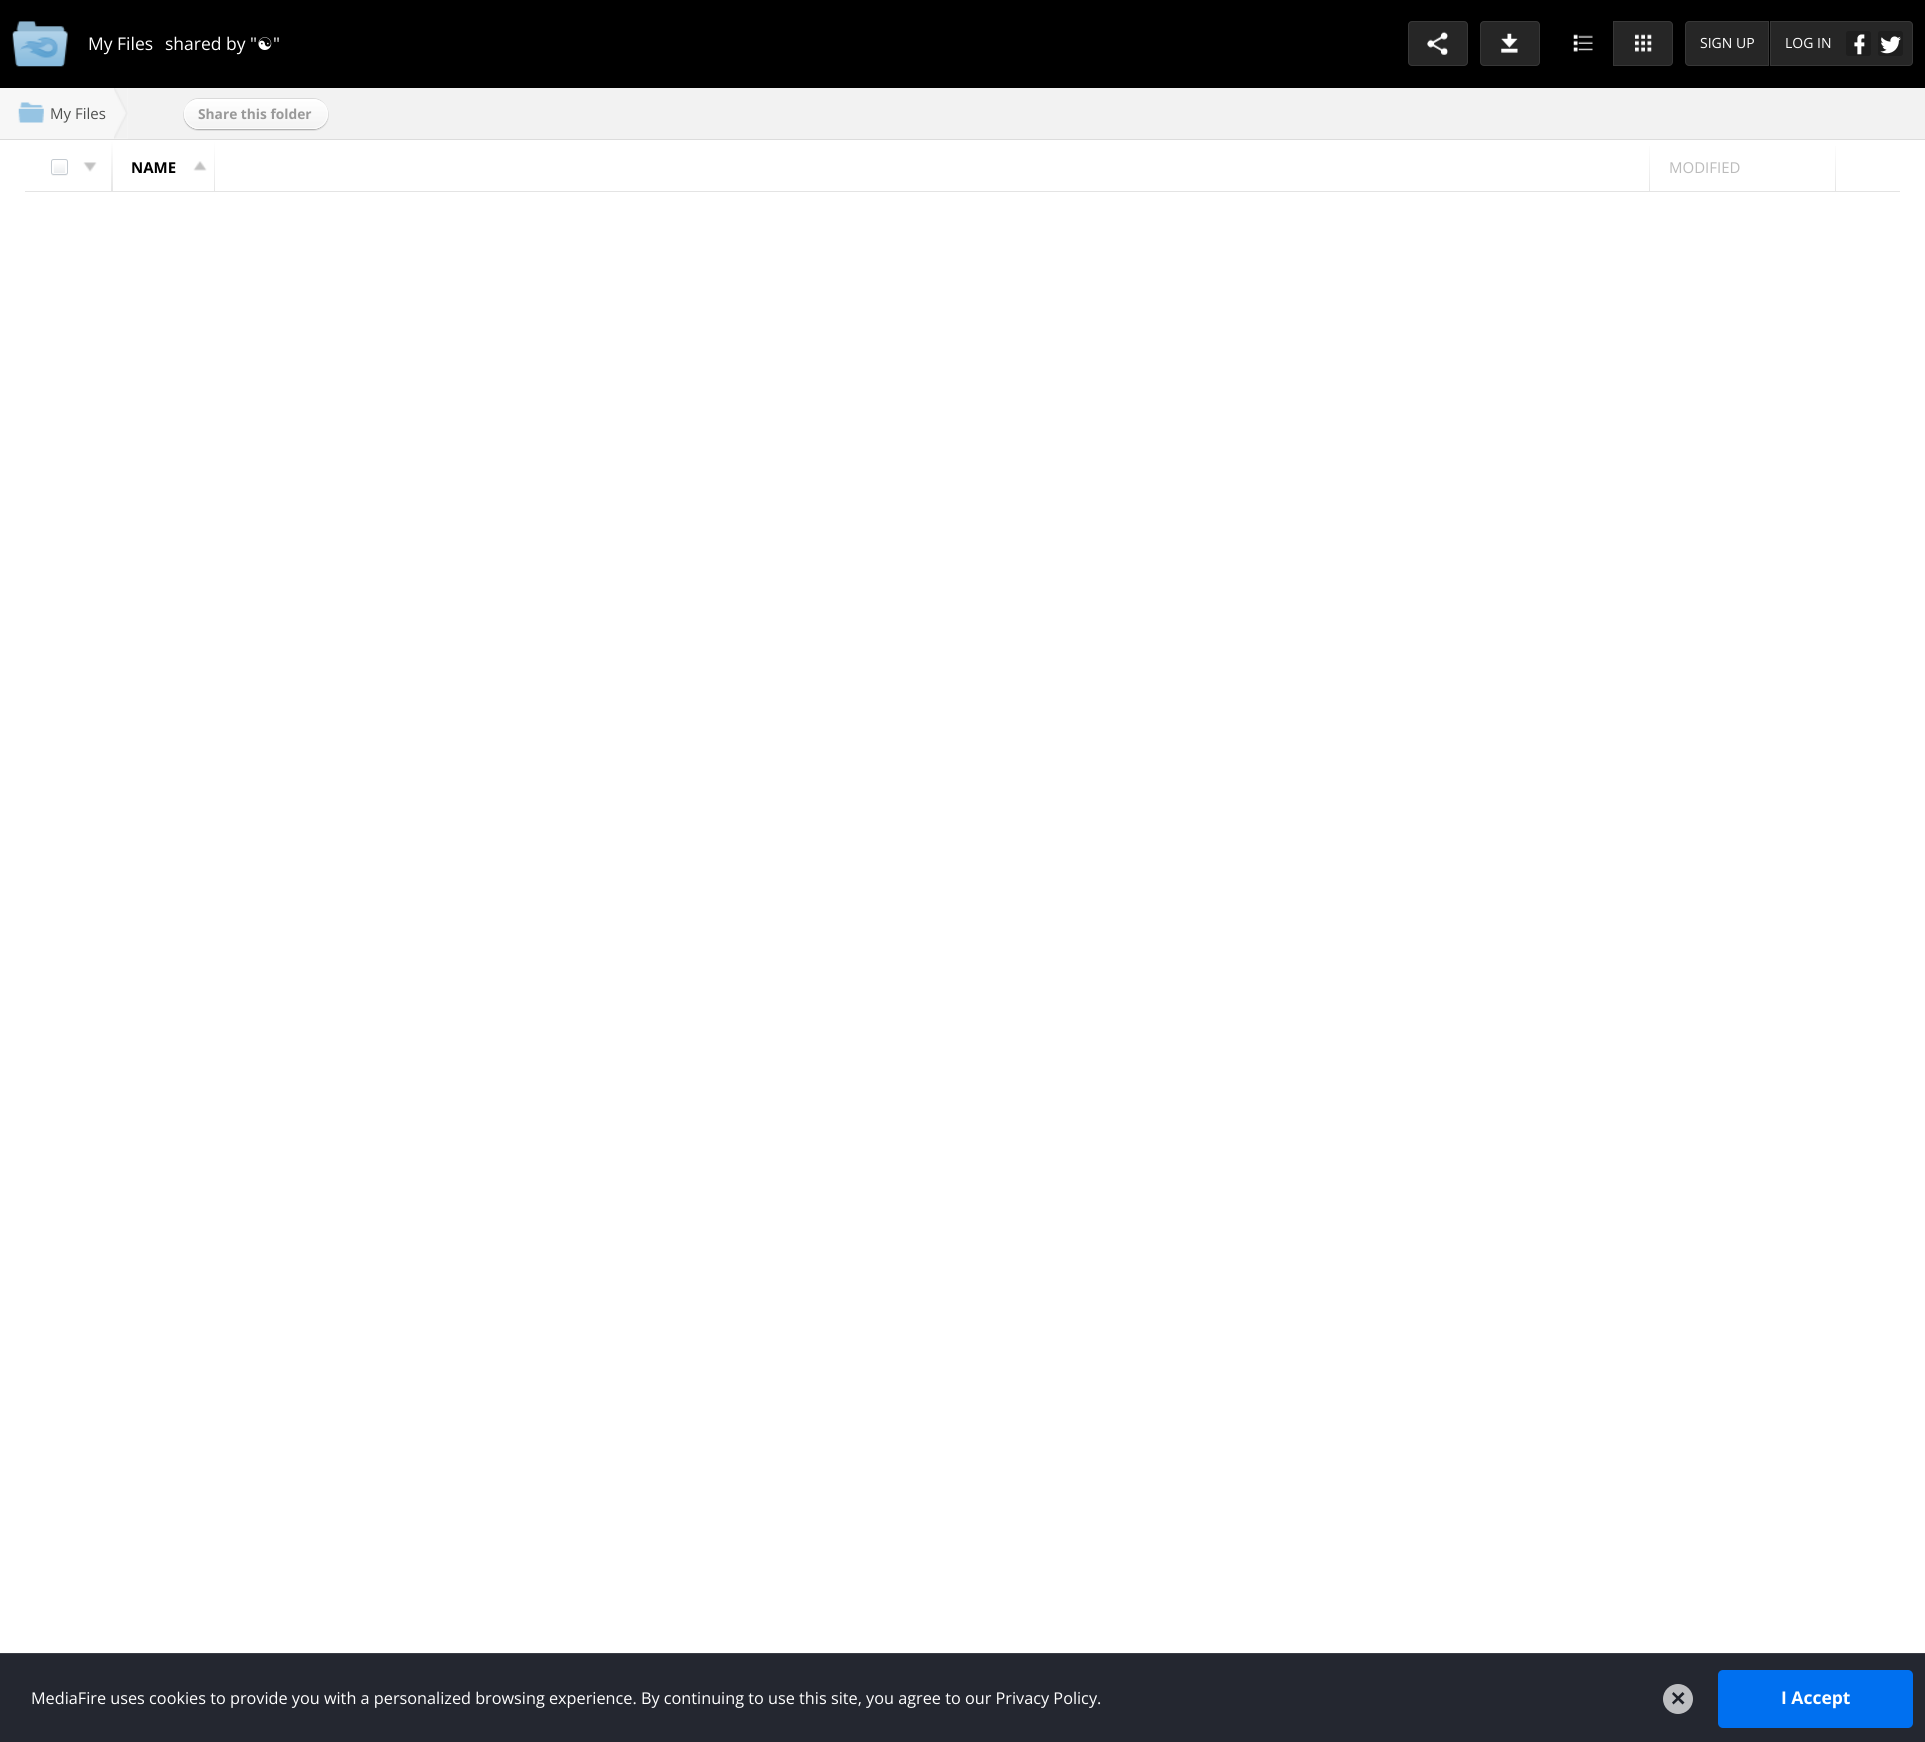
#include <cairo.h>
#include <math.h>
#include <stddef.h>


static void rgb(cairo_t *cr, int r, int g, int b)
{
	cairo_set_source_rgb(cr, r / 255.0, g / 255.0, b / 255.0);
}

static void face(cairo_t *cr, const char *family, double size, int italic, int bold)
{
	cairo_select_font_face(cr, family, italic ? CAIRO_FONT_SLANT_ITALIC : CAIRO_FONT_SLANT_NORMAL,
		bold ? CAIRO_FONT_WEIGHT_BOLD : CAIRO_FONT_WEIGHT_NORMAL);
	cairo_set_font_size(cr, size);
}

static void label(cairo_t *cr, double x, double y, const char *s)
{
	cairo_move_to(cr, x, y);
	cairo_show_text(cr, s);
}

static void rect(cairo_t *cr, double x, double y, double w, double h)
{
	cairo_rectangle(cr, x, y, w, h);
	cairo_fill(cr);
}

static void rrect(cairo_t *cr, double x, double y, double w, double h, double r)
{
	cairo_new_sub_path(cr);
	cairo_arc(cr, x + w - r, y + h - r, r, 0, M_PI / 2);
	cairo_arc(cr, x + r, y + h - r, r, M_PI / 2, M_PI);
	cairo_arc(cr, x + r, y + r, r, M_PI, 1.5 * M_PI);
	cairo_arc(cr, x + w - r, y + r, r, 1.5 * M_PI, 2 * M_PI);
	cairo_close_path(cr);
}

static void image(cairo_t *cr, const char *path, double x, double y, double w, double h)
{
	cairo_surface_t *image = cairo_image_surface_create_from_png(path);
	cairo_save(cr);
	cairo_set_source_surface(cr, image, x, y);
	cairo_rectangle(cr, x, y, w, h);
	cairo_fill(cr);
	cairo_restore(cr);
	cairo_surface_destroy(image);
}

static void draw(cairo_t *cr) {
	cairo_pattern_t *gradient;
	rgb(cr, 255, 255, 255);
	cairo_paint(cr);
	rgb(cr, 0, 0, 0);
	rect(cr, 0, 0, 1925, 88);
	image(cr, "image0.png", 12, 21, 56, 46);
	face(cr, "Open Sans", 17.5, 0, 0);
	rgb(cr, 255, 255, 255);
	label(cr, 88, 50, "My Files");
	label(cr, 165, 50, "shared by \"");
	face(cr, "DejaVu Sans", 17.5, 0, 0);
	label(cr, 257, 50, "☯");
	face(cr, "Open Sans", 17.5, 0, 0);
	label(cr, 273, 50, "\"");
	rgb(cr, 38, 38, 38);
	rrect(cr, 1408, 21, 60, 45, 4);
	cairo_fill(cr);
	rrect(cr, 1408.5, 21.5, 59, 44, 3.5);
	cairo_set_source_rgba(cr, 1, 1, 1, 0.08);
	cairo_set_line_width(cr, 1);
	cairo_stroke(cr);
	image(cr, "image1.png", 1427, 31, 21, 24);
	rgb(cr, 38, 38, 38);
	rrect(cr, 1480, 21, 60, 45, 4);
	cairo_fill(cr);
	rrect(cr, 1480.5, 21.5, 59, 44, 3.5);
	cairo_set_source_rgba(cr, 1, 1, 1, 0.08);
	cairo_stroke(cr);
	image(cr, "image2.png", 1501, 33, 17, 20);
	image(cr, "image3.png", 1573, 34, 20, 18);
	rgb(cr, 38, 38, 38);
	cairo_new_path(cr);
	cairo_move_to(cr, 1613, 21);
	cairo_line_to(cr, 1669, 21);
	cairo_curve_to(cr, 1671, 21, 1673, 23, 1673, 25);
	cairo_line_to(cr, 1673, 62);
	cairo_curve_to(cr, 1673, 64, 1671, 66, 1669, 66);
	cairo_line_to(cr, 1613, 66);
	cairo_close_path(cr);
	cairo_fill(cr);
	cairo_new_path(cr);
	cairo_move_to(cr, 1613.5, 21.5);
	cairo_line_to(cr, 1669, 21.5);
	cairo_curve_to(cr, 1671, 21.5, 1672.5, 23, 1672.5, 25);
	cairo_line_to(cr, 1672.5, 62);
	cairo_curve_to(cr, 1672.5, 64, 1671, 65.5, 1669, 65.5);
	cairo_line_to(cr, 1613.5, 65.5);
	cairo_close_path(cr);
	cairo_set_source_rgba(cr, 1, 1, 1, 0.08);
	cairo_stroke(cr);
	image(cr, "image4.png", 1635, 34, 17, 18);
	rgb(cr, 38, 38, 38);
	cairo_new_path(cr);
	cairo_move_to(cr, 1689, 21);
	cairo_line_to(cr, 1769, 21);
	cairo_line_to(cr, 1769, 66);
	cairo_line_to(cr, 1689, 66);
	cairo_curve_to(cr, 1687, 66, 1685, 64, 1685, 62);
	cairo_line_to(cr, 1685, 25);
	cairo_curve_to(cr, 1685, 23, 1687, 21, 1689, 21);
	cairo_close_path(cr);
	cairo_fill(cr);
	cairo_new_path(cr);
	cairo_move_to(cr, 1689, 21.5);
	cairo_line_to(cr, 1768.5, 21.5);
	cairo_line_to(cr, 1768.5, 65.5);
	cairo_line_to(cr, 1689, 65.5);
	cairo_curve_to(cr, 1687, 65.5, 1685.5, 64, 1685.5, 62);
	cairo_line_to(cr, 1685.5, 25);
	cairo_curve_to(cr, 1685.5, 23, 1687, 21.5, 1689, 21.5);
	cairo_close_path(cr);
	cairo_set_source_rgba(cr, 1, 1, 1, 0.08);
	cairo_stroke(cr);
	face(cr, "Open Sans", 14, 0, 0);
	rgb(cr, 255, 255, 255);
	label(cr, 1700, 48, "SIGN UP");
	rgb(cr, 38, 38, 38);
	cairo_new_path(cr);
	cairo_move_to(cr, 1770, 21);
	cairo_line_to(cr, 1909, 21);
	cairo_curve_to(cr, 1911, 21, 1913, 23, 1913, 25);
	cairo_line_to(cr, 1913, 62);
	cairo_curve_to(cr, 1913, 64, 1911, 66, 1909, 66);
	cairo_line_to(cr, 1770, 66);
	cairo_close_path(cr);
	cairo_fill(cr);
	cairo_new_path(cr);
	cairo_move_to(cr, 1770.5, 21.5);
	cairo_line_to(cr, 1909, 21.5);
	cairo_curve_to(cr, 1911, 21.5, 1912.5, 23, 1912.5, 25);
	cairo_line_to(cr, 1912.5, 62);
	cairo_curve_to(cr, 1912.5, 64, 1911, 65.5, 1909, 65.5);
	cairo_line_to(cr, 1770.5, 65.5);
	cairo_close_path(cr);
	cairo_set_source_rgba(cr, 1, 1, 1, 0.08);
	cairo_stroke(cr);
	rgb(cr, 255, 255, 255);
	label(cr, 1785, 48, "LOG IN");
	rgb(cr, 30, 30, 30);
	rrect(cr, 1846, 31, 25, 25, 2.5);
	cairo_fill(cr);
	image(cr, "image5.png", 1854, 34, 11, 21);
	rrect(cr, 1878, 31, 25, 25, 2.5);
	cairo_fill(cr);
	image(cr, "image6.png", 1880, 36, 21, 18);
	rgb(cr, 242, 242, 242);
	rect(cr, 128, 88, 1797, 51);
	rgb(cr, 220, 220, 220);
	rect(cr, 0, 139, 1925, 1);
	rgb(cr, 247, 247, 247);
	rect(cr, 0, 88, 128, 51);
	image(cr, "image7.png", 114, 88, 14, 51);
	image(cr, "image8.png", 18, 102, 26, 21);
	face(cr, "Open Sans", 15, 0, 0);
	rgb(cr, 79, 80, 79);
	label(cr, 50, 119, "My Files");
	rgb(cr, 194, 194, 194);
	cairo_new_path(cr);
	cairo_move_to(cr, 184, 117);
	cairo_curve_to(cr, 185, 125, 192, 130, 199, 130);
	cairo_line_to(cr, 313, 130);
	cairo_curve_to(cr, 321, 130, 328, 123, 328, 115);
	cairo_curve_to(cr, 328, 113, 328, 111, 327, 109);
	cairo_line_to(cr, 328, 114);
	cairo_curve_to(cr, 328, 122, 321, 129, 312, 129);
	cairo_line_to(cr, 199, 129);
	cairo_curve_to(cr, 192, 129, 186, 124, 184, 117);
	cairo_close_path(cr);
	cairo_fill(cr);
	cairo_set_source_rgba(cr, 0, 0, 0, 0.08);
	cairo_new_path(cr);
	cairo_move_to(cr, 187, 104);
	cairo_curve_to(cr, 185, 107, 183, 111, 183, 115);
	cairo_curve_to(cr, 183, 124, 190, 131, 199, 131);
	cairo_line_to(cr, 313, 131);
	cairo_curve_to(cr, 322, 131, 329, 124, 329, 115);
	cairo_curve_to(cr, 329, 108, 324, 102, 318, 100);
	cairo_curve_to(cr, 324, 102, 328, 107, 328, 114);
	cairo_curve_to(cr, 328, 122, 321, 129, 312, 129);
	cairo_line_to(cr, 199, 129);
	cairo_curve_to(cr, 190, 129, 184, 122, 184, 114);
	cairo_curve_to(cr, 184, 110, 185, 107, 187, 104);
	cairo_close_path(cr);
	cairo_fill(cr);
	rgb(cr, 218, 218, 218);
	cairo_new_path(cr);
	cairo_move_to(cr, 199, 98);
	cairo_curve_to(cr, 192, 98, 187, 102, 185, 109);
	cairo_curve_to(cr, 187, 103, 192, 99, 199, 99);
	cairo_line_to(cr, 312, 99);
	cairo_curve_to(cr, 321, 99, 328, 105, 328, 114);
	cairo_curve_to(cr, 328, 117, 327, 119, 325, 122);
	cairo_curve_to(cr, 332, 112, 325, 98, 313, 98);
	cairo_close_path(cr);
	cairo_fill(cr);
	rgb(cr, 255, 255, 255);
	rrect(cr, 184, 99, 144, 30, 15);
	cairo_fill(cr);
	gradient = cairo_pattern_create_linear(256, 99, 256, 129);
	cairo_pattern_add_color_stop_rgba(gradient, 0, 0.941, 0.941, 0.941, 0);
	cairo_pattern_add_color_stop_rgba(gradient, 1, 0.941, 0.941, 0.941, 0.8);
	cairo_set_source(cr, gradient);
	cairo_pattern_destroy(gradient);
	rrect(cr, 184, 99, 144, 30, 15);
	cairo_fill(cr);
	rrect(cr, 184.5, 99.5, 143, 29, 14.5);
	cairo_set_source_rgba(cr, 1, 1, 1, 0.8);
	cairo_stroke(cr);
	face(cr, "Open Sans", 13.75, 0, 1);
	rgb(cr, 153, 153, 153);
	label(cr, 198, 119, "Share this folder");
	rgb(cr, 228, 228, 228);
	rect(cr, 25, 191, 1875, 1);
	gradient = cairo_pattern_create_linear(69, 141, 69, 191);
	cairo_pattern_add_color_stop_rgba(gradient, 0, 1, 1, 1, 1);
	cairo_pattern_add_color_stop_rgba(gradient, 1, 0.902, 0.902, 0.902, 1);
	cairo_set_source(cr, gradient);
	cairo_pattern_destroy(gradient);
	rect(cr, 111, 141, 2, 50);
	rgb(cr, 244, 244, 244);
	cairo_new_path(cr);
	cairo_move_to(cr, 51, 161.5);
	cairo_curve_to(cr, 50.5, 163, 51, 168, 51, 170);
	cairo_curve_to(cr, 51, 177.5, 52, 176, 59.5, 176);
	cairo_curve_to(cr, 68.5, 176, 68, 177, 68, 168);
	cairo_curve_to(cr, 68, 166.5, 68.5, 162.5, 67.5, 161);
	cairo_line_to(cr, 67.5, 170.5);
	cairo_curve_to(cr, 67.5, 176.5, 64.5, 175, 59.5, 175);
	cairo_curve_to(cr, 54, 175, 51, 176.5, 51, 170.5);
	cairo_close_path(cr);
	cairo_fill(cr);
	rgb(cr, 234, 236, 238);
	rrect(cr, 53, 160, 13, 14, 1);
	cairo_fill(cr);
	gradient = cairo_pattern_create_linear(59, 160, 59, 174);
	cairo_pattern_add_color_stop_rgba(gradient, 0.2, 1, 1, 1, 1);
	cairo_pattern_add_color_stop_rgba(gradient, 1, 1, 1, 1, 0);
	cairo_set_source(cr, gradient);
	cairo_pattern_destroy(gradient);
	rrect(cr, 53, 160, 13, 14, 1);
	cairo_fill(cr);
	rrect(cr, 53.5, 160.5, 12, 13, 0.5);
	cairo_set_source_rgba(cr, 1, 1, 1, 0.85);
	cairo_stroke(cr);
	rrect(cr, 51.5, 159.5, 16, 15, 2);
	rgb(cr, 197, 203, 209);
	cairo_stroke(cr);
	image(cr, "image9.png", 83, 162, 14, 10);
	gradient = cairo_pattern_create_linear(163, 141, 163, 191);
	cairo_pattern_add_color_stop_rgba(gradient, 0, 1, 1, 1, 1);
	cairo_pattern_add_color_stop_rgba(gradient, 1, 0.902, 0.902, 0.902, 1);
	cairo_set_source(cr, gradient);
	cairo_pattern_destroy(gradient);
	rect(cr, 214, 141, 1, 50);
	face(cr, "Open Sans", 15, 0, 1);
	rgb(cr, 0, 0, 0);
	label(cr, 131, 173, "NAME");
	image(cr, "image10.png", 193, 161, 14, 10);
	gradient = cairo_pattern_create_linear(1743, 141, 1743, 191);
	cairo_pattern_add_color_stop_rgba(gradient, 0, 1, 1, 1, 1);
	cairo_pattern_add_color_stop_rgba(gradient, 1, 0.902, 0.902, 0.902, 1);
	cairo_set_source(cr, gradient);
	cairo_pattern_destroy(gradient);
	rect(cr, 1649, 146, 187, 45);
	rgb(cr, 255, 255, 255);
	rect(cr, 1650, 146, 185, 45);
	face(cr, "Open Sans", 15, 0, 0);
	rgb(cr, 187, 187, 187);
	label(cr, 1669, 173, "MODIFIED");
	rgb(cr, 36, 39, 48);
	rect(cr, 0, 1654, 1925, 88);
	rgb(cr, 58, 61, 69);
	rect(cr, 0, 1653, 1925, 1);
	face(cr, "Open Sans", 16.25, 0, 0);
	rgb(cr, 255, 255, 255);
	label(cr, 31, 1704, "MediaFire uses cookies to provide you with a personalized browsing experience. By continuing to use this site, you agree to our Privacy Policy.");
	rgb(cr, 189, 190, 193);
	cairo_new_path(cr);
	cairo_arc(cr, 1678, 1699, 15, 0, 2 * M_PI);
	cairo_fill(cr);
	rgb(cr, 28, 31, 40);
	cairo_new_path(cr);
	cairo_move_to(cr, 1673.5, 1692);
	cairo_line_to(cr, 1684.5, 1702.5);
	cairo_line_to(cr, 1682.5, 1704.5);
	cairo_line_to(cr, 1672, 1694);
	cairo_close_path(cr);
	cairo_fill(cr);
	cairo_new_path(cr);
	cairo_move_to(cr, 1672, 1702.5);
	cairo_line_to(cr, 1682.5, 1692);
	cairo_line_to(cr, 1684.5, 1694);
	cairo_line_to(cr, 1673.5, 1704.5);
	cairo_close_path(cr);
	cairo_fill(cr);
	rgb(cr, 0, 112, 240);
	rrect(cr, 1718, 1670, 195, 58, 5);
	cairo_fill(cr);
	face(cr, "Open Sans", 17.5, 0, 1);
	rgb(cr, 255, 255, 255);
	label(cr, 1781, 1704, "I Accept");
}

int main(void) {
	cairo_surface_t *surface = cairo_image_surface_create(CAIRO_FORMAT_RGB24, 1925, 1742);
	cairo_t *cr = cairo_create(surface);
	cairo_font_options_t *options = cairo_font_options_create();
	cairo_font_options_set_hint_metrics(options, CAIRO_HINT_METRICS_OFF);
	cairo_font_options_set_hint_style(options, CAIRO_HINT_STYLE_NONE);
	cairo_set_font_options(cr, options);
	cairo_set_miter_limit(cr, 4);
	draw(cr);
	cairo_surface_write_to_png(surface, "render.png");
	cairo_font_options_destroy(options);
	cairo_destroy(cr);
	cairo_surface_destroy(surface);
	return 0;
}
